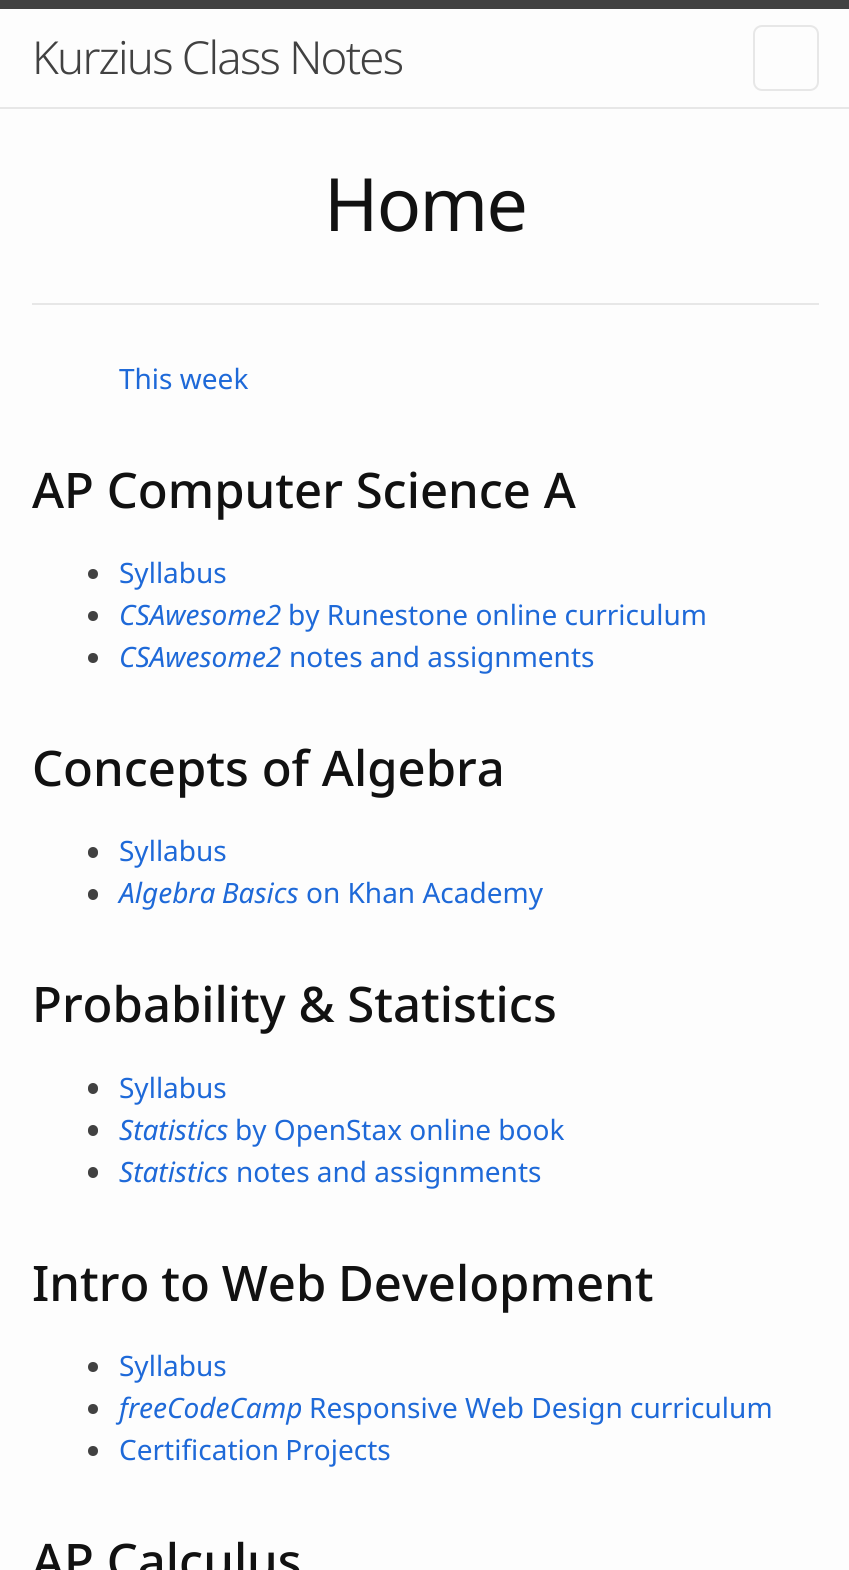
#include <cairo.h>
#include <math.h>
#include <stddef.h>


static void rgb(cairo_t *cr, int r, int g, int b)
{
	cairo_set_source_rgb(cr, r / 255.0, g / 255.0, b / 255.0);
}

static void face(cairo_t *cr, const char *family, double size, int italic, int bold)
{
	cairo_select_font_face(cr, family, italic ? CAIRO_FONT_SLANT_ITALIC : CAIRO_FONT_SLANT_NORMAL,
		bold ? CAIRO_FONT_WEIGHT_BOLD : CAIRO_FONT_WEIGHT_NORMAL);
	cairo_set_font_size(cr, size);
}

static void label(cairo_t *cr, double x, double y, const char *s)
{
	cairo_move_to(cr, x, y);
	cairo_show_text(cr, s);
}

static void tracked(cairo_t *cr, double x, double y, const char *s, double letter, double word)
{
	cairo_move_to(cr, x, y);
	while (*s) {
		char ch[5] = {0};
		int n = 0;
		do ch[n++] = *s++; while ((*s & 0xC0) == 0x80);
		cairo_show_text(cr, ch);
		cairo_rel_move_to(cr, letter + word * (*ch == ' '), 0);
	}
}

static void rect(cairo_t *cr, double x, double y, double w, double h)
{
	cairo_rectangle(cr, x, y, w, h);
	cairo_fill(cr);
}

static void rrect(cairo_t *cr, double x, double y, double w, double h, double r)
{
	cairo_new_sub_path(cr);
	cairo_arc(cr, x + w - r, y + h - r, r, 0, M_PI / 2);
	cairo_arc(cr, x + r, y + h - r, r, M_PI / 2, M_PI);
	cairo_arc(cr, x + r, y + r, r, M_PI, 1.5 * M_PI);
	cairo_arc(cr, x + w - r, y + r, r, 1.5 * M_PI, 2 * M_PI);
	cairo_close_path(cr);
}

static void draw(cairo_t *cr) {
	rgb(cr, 253, 253, 253);
	cairo_paint(cr);
	rgb(cr, 65, 65, 65);
	rect(cr, 0, 0, 849, 9);
	rgb(cr, 231, 231, 231);
	rect(cr, 0, 107, 849, 2);
	face(cr, "Noto Sans Light", 45.5, 0, 0);
	rgb(cr, 65, 65, 65);
	tracked(cr, 32, 74, "Kurzius Class Notes", -1.75, 0);
	rrect(cr, 754, 26, 64, 64, 8);
	rgb(cr, 231, 231, 231);
	cairo_stroke(cr);
	rect(cr, 32, 303, 787, 2);
	face(cr, "Noto Sans", 73.5, 0, 0);
	rgb(cr, 17, 17, 17);
	tracked(cr, 324, 231, "Home", -1.75, 0);
	face(cr, "Noto Sans", 28, 0, 0);
	rgb(cr, 30, 105, 216);
	label(cr, 119, 389, "This week");
	face(cr, "Noto Sans Medium", 49, 0, 0);
	rgb(cr, 17, 17, 17);
	label(cr, 32, 508, "AP Computer Science A");
	rgb(cr, 65, 65, 65);
	cairo_new_path(cr);
	cairo_arc(cr, 93, 574, 5, 0, 2 * M_PI);
	cairo_fill(cr);
	face(cr, "Noto Sans", 28, 0, 0);
	rgb(cr, 30, 105, 216);
	label(cr, 119, 583, "Syllabus");
	rgb(cr, 65, 65, 65);
	cairo_new_path(cr);
	cairo_arc(cr, 93, 616, 5, 0, 2 * M_PI);
	cairo_fill(cr);
	face(cr, "Noto Sans", 28, 1, 0);
	rgb(cr, 30, 105, 216);
	label(cr, 119, 625, "CSAwesome2");
	face(cr, "Noto Sans", 28, 0, 0);
	label(cr, 288, 625, "by Runestone online curriculum");
	rgb(cr, 65, 65, 65);
	cairo_new_path(cr);
	cairo_arc(cr, 93, 658, 5, 0, 2 * M_PI);
	cairo_fill(cr);
	face(cr, "Noto Sans", 28, 1, 0);
	rgb(cr, 30, 105, 216);
	label(cr, 119, 667, "CSAwesome2");
	face(cr, "Noto Sans", 28, 0, 0);
	label(cr, 289, 667, "notes and assignments");
	face(cr, "Noto Sans Medium", 49, 0, 0);
	rgb(cr, 17, 17, 17);
	label(cr, 32, 786, "Concepts of Algebra");
	rgb(cr, 65, 65, 65);
	rrect(cr, 88, 847, 10, 11, 5);
	cairo_fill(cr);
	face(cr, "Noto Sans", 28, 0, 0);
	rgb(cr, 30, 105, 216);
	label(cr, 119, 861, "Syllabus");
	rgb(cr, 65, 65, 65);
	rrect(cr, 88, 889, 10, 11, 5);
	cairo_fill(cr);
	face(cr, "Noto Sans", 28, 1, 0);
	rgb(cr, 30, 105, 216);
	tracked(cr, 119, 903, "Algebra Basics", 0, -1);
	face(cr, "Noto Sans", 28, 0, 0);
	label(cr, 306, 903, "on Khan Academy");
	face(cr, "Noto Sans Medium", 49, 0, 0);
	rgb(cr, 17, 17, 17);
	label(cr, 32, 1022, "Probability & Statistics");
	rgb(cr, 65, 65, 65);
	rrect(cr, 88, 1083, 10, 11, 5);
	cairo_fill(cr);
	face(cr, "Noto Sans", 28, 0, 0);
	rgb(cr, 30, 105, 216);
	label(cr, 119, 1098, "Syllabus");
	rgb(cr, 65, 65, 65);
	rrect(cr, 88, 1125, 10, 11, 5);
	cairo_fill(cr);
	face(cr, "Noto Sans", 28, 1, 0);
	rgb(cr, 30, 105, 216);
	label(cr, 119, 1140, "Statistics");
	face(cr, "Noto Sans", 28, 0, 0);
	label(cr, 235, 1140, "by OpenStax online book");
	rgb(cr, 65, 65, 65);
	rrect(cr, 88, 1167, 10, 11, 5);
	cairo_fill(cr);
	face(cr, "Noto Sans", 28, 1, 0);
	rgb(cr, 30, 105, 216);
	label(cr, 119, 1182, "Statistics");
	face(cr, "Noto Sans", 28, 0, 0);
	label(cr, 236, 1182, "notes and assignments");
	face(cr, "Noto Sans Medium", 49, 0, 0);
	rgb(cr, 17, 17, 17);
	tracked(cr, 32, 1301, "Intro to Web Development", 0, -1);
	rgb(cr, 65, 65, 65);
	cairo_new_path(cr);
	cairo_arc(cr, 93, 1367, 5, 0, 2 * M_PI);
	cairo_fill(cr);
	face(cr, "Noto Sans", 28, 0, 0);
	rgb(cr, 30, 105, 216);
	label(cr, 119, 1376, "Syllabus");
	rgb(cr, 65, 65, 65);
	cairo_new_path(cr);
	cairo_arc(cr, 93, 1409, 5, 0, 2 * M_PI);
	cairo_fill(cr);
	face(cr, "Noto Sans", 28, 1, 0);
	rgb(cr, 30, 105, 216);
	label(cr, 119, 1418, "freeCodeCamp");
	face(cr, "Noto Sans", 28, 0, 0);
	label(cr, 309, 1418, "Responsive Web Design curriculum");
	rgb(cr, 65, 65, 65);
	cairo_new_path(cr);
	cairo_arc(cr, 93, 1451, 5, 0, 2 * M_PI);
	cairo_fill(cr);
	rgb(cr, 30, 105, 216);
	tracked(cr, 119, 1460, "Certification Projects", 0, -1);
	face(cr, "Noto Sans Medium", 49, 0, 0);
	rgb(cr, 17, 17, 17);
	label(cr, 32, 1579, "AP Calculus");
}

int main(void) {
	cairo_surface_t *surface = cairo_image_surface_create(CAIRO_FORMAT_RGB24, 849, 1570);
	cairo_t *cr = cairo_create(surface);
	cairo_font_options_t *options = cairo_font_options_create();
	cairo_font_options_set_hint_metrics(options, CAIRO_HINT_METRICS_OFF);
	cairo_font_options_set_hint_style(options, CAIRO_HINT_STYLE_NONE);
	cairo_set_font_options(cr, options);
	cairo_set_miter_limit(cr, 4);
	draw(cr);
	cairo_surface_write_to_png(surface, "render.png");
	cairo_font_options_destroy(options);
	cairo_destroy(cr);
	cairo_surface_destroy(surface);
	return 0;
}
